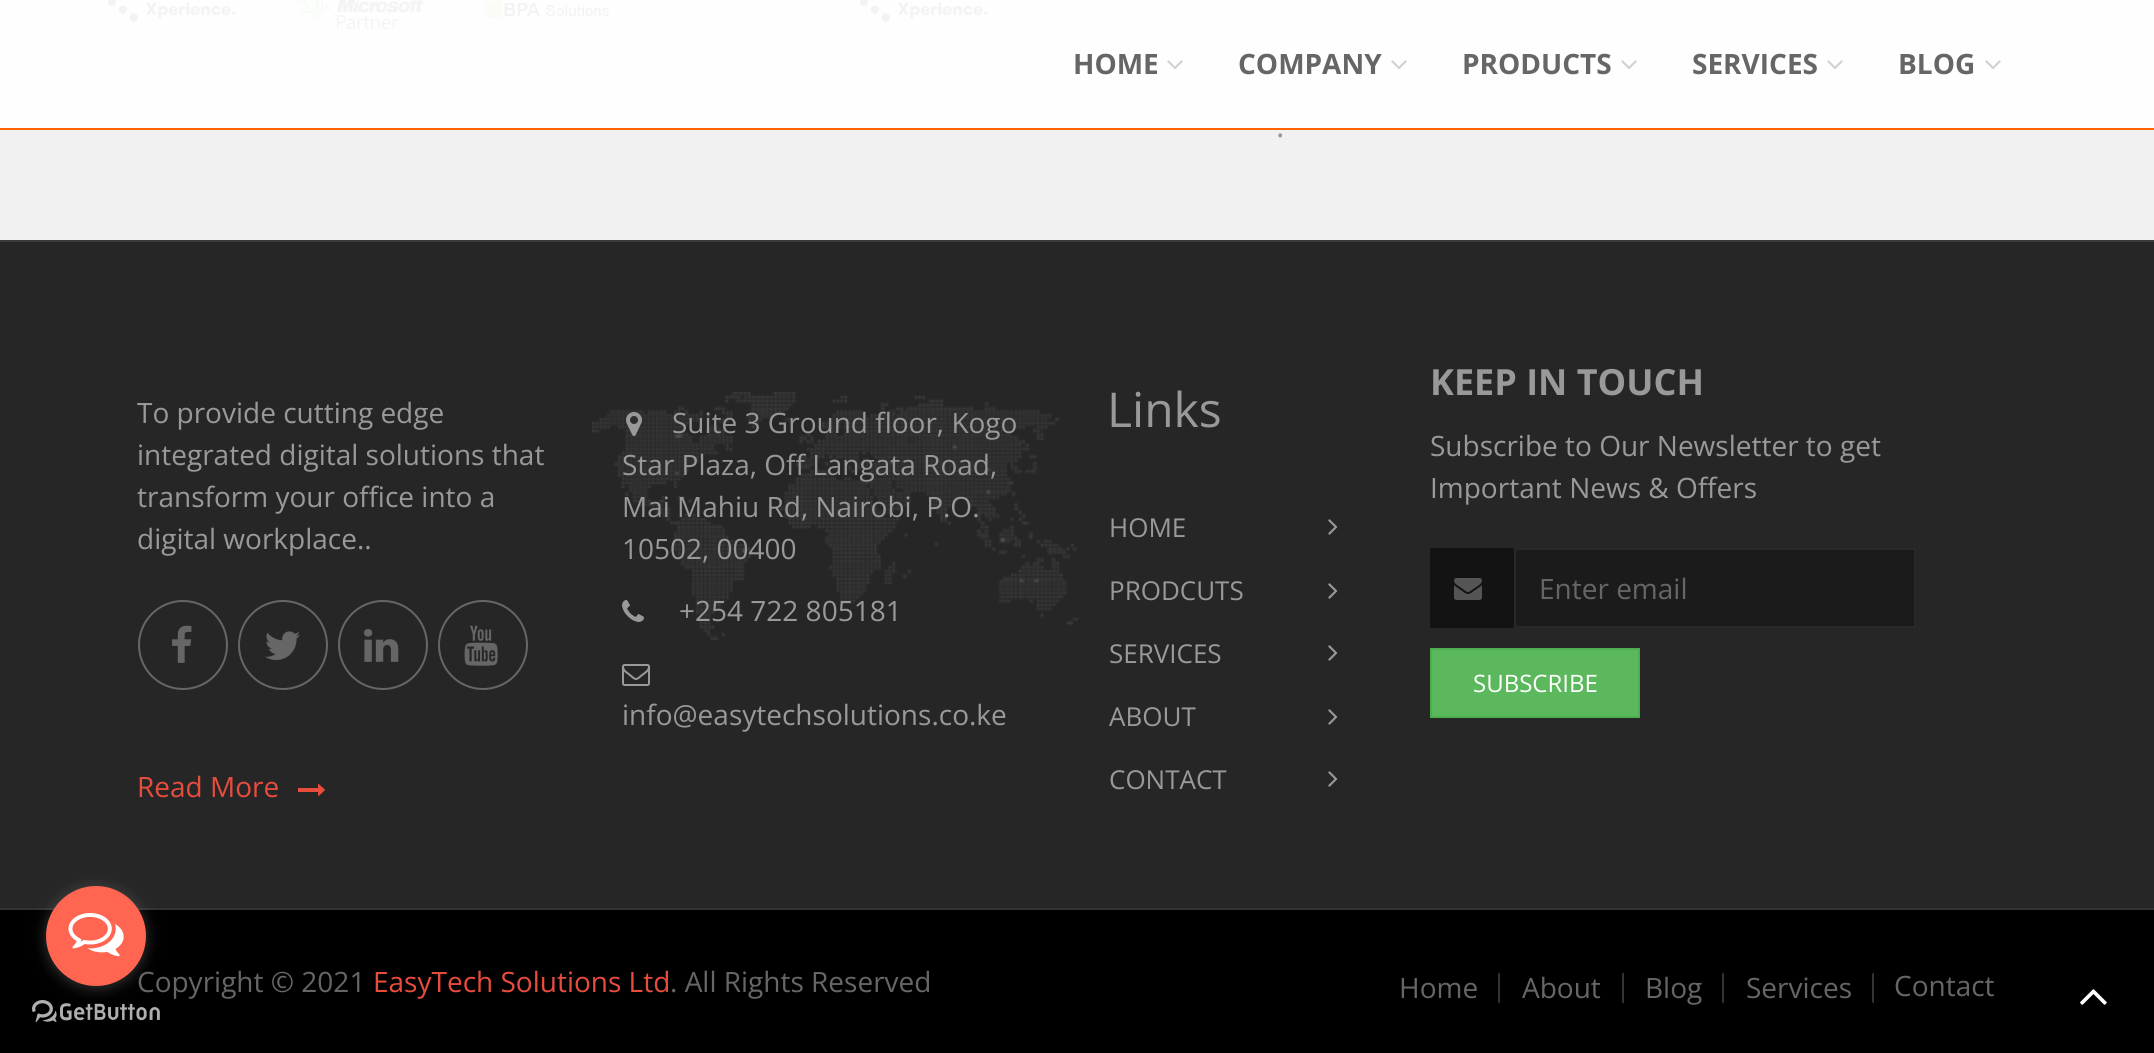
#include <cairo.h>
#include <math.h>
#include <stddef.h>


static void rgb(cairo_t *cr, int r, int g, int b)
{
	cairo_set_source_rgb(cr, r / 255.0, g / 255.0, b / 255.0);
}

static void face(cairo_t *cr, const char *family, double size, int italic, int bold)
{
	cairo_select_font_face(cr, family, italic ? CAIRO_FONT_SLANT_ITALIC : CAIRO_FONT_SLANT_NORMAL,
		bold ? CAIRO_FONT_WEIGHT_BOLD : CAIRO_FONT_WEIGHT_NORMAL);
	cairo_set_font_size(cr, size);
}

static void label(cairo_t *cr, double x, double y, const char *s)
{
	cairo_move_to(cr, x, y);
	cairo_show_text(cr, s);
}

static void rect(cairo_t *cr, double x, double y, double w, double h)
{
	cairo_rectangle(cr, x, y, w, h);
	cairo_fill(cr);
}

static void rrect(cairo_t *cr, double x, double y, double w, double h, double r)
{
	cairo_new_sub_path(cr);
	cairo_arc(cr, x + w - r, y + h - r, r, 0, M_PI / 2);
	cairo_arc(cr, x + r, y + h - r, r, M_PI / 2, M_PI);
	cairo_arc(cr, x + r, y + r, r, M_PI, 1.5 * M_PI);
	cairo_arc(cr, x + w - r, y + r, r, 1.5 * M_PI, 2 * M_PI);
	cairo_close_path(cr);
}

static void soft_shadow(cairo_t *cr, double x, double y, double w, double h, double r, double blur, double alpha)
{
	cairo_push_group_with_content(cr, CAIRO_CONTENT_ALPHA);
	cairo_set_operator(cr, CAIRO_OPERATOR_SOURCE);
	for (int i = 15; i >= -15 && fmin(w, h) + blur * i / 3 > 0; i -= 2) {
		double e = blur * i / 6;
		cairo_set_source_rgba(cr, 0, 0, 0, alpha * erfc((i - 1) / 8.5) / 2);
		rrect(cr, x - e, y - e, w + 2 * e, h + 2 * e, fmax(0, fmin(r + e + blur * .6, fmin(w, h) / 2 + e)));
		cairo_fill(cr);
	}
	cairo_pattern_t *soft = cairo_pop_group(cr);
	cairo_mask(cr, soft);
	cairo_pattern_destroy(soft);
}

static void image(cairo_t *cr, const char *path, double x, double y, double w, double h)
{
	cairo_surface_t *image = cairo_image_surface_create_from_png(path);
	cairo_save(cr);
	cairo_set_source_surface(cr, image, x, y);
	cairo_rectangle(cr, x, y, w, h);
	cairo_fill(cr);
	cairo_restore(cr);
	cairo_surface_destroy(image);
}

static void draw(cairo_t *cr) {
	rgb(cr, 38, 38, 38);
	cairo_paint(cr);
	rgb(cr, 0, 0, 0);
	rect(cr, 0, 910, 2154, 143);
	image(cr, "image1.png", 32, 1000, 128, 22);
	rgb(cr, 51, 51, 51);
	rect(cr, 0, 908, 2154, 2);
	rgb(cr, 136, 136, 136);
	soft_shadow(cr, 46, 888, 100, 100, 50, 7, 0.4);
	face(cr, "Open Sans", 28, 0, 0);
	rgb(cr, 102, 102, 102);
	label(cr, 137, 992, "Copyright © 2021");
	rgb(cr, 255, 101, 80);
	cairo_new_path(cr);
	cairo_arc(cr, 96, 936, 50, 0, 2 * M_PI);
	cairo_fill(cr);
	image(cr, "image0.png", 68, 913, 56, 44);
	rgb(cr, 241, 241, 241);
	rect(cr, 0, 0, 2154, 240);
	image(cr, "image5.png", 108, 0, 128, 22);
	image(cr, "image6.png", 296, 0, 128, 30);
	image(cr, "image7.png", 484, 1, 125, 17);
	image(cr, "image8.png", 859, 0, 129, 22);
	cairo_set_source_rgba(cr, 1, 1, 1, 0.95);
	rect(cr, 0, 0, 2154, 128);
	rgb(cr, 255, 100, 0);
	rect(cr, 0, 128, 2154, 2);
	face(cr, "Open Sans", 28, 0, 1);
	rgb(cr, 102, 102, 102);
	label(cr, 1073, 74, "HOME");
	image(cr, "image2.png", 1167, 60, 16, 9);
	label(cr, 1238, 74, "COMPANY");
	image(cr, "image3.png", 1391, 60, 16, 9);
	label(cr, 1462, 74, "PRODUCTS");
	image(cr, "image4.png", 1621, 60, 16, 9);
	label(cr, 1692, 74, "SERVICES");
	image(cr, "image2.png", 1827, 60, 16, 9);
	label(cr, 1898, 74, "BLOG");
	image(cr, "image2.png", 1985, 60, 16, 9);
	face(cr, "Open Sans", 32, 0, 0);
	rgb(cr, 153, 153, 153);
	label(cr, 1276, 137, ".");
	rgb(cr, 58, 58, 58);
	rect(cr, 0, 240, 2154, 2);
	face(cr, "Open Sans", 28, 0, 0);
	rgb(cr, 153, 153, 153);
	label(cr, 137, 423, "To provide cutting edge");
	label(cr, 137, 465, "integrated digital solutions that");
	label(cr, 137, 507, "transform your office into a");
	label(cr, 137, 549, "digital workplace..");
	cairo_new_path(cr);
	cairo_arc(cr, 183, 645, 44, 0, 2 * M_PI);
	rgb(cr, 102, 102, 102);
	cairo_stroke(cr);
	image(cr, "image9.png", 172, 625, 20, 38);
	cairo_arc(cr, 283, 645, 44, 0, 2 * M_PI);
	cairo_stroke(cr);
	image(cr, "image10.png", 265, 631, 35, 29);
	cairo_arc(cr, 383, 645, 44, 0, 2 * M_PI);
	cairo_stroke(cr);
	image(cr, "image11.png", 364, 629, 35, 33);
	cairo_arc(cr, 483, 645, 44, 0, 2 * M_PI);
	cairo_stroke(cr);
	image(cr, "image12.png", 464, 625, 34, 41);
	image(cr, "image13.png", 592, 392, 486, 248);
	image(cr, "image14.png", 626, 412, 16, 24);
	rgb(cr, 153, 153, 153);
	label(cr, 672, 433, "Suite 3 Ground floor, Kogo");
	label(cr, 622, 475, "Star Plaza, Off Langata Road,");
	label(cr, 622, 517, "Mai Mahiu Rd, Nairobi, P.O.");
	label(cr, 622, 559, "10502, 00400");
	image(cr, "image15.png", 622, 600, 22, 22);
	label(cr, 679, 621, "+254 722 805181");
	image(cr, "image16.png", 622, 664, 28, 22);
	label(cr, 622, 725, "info@easytechsolutions.co.ke");
	rgb(cr, 232, 76, 61);
	label(cr, 137, 797, "Read More");
	image(cr, "image17.png", 298, 784, 27, 12);
	face(cr, "Open Sans", 48, 0, 0);
	rgb(cr, 153, 153, 153);
	label(cr, 1107, 427, "Links");
	face(cr, "Open Sans", 26, 0, 0);
	label(cr, 1109, 537, "HOME");
	image(cr, "image18.png", 1328, 519, 10, 16);
	label(cr, 1109, 600, "PRODCUTS");
	image(cr, "image18.png", 1328, 583, 10, 16);
	label(cr, 1109, 663, "SERVICES");
	image(cr, "image18.png", 1328, 645, 10, 16);
	label(cr, 1109, 726, "ABOUT");
	image(cr, "image18.png", 1328, 709, 10, 16);
	label(cr, 1109, 789, "CONTACT");
	image(cr, "image18.png", 1328, 771, 10, 16);
	face(cr, "Open Sans", 36, 0, 1);
	label(cr, 1430, 395, "KEEP IN TOUCH");
	face(cr, "Open Sans", 28, 0, 0);
	label(cr, 1430, 456, "Subscribe to Our Newsletter to get");
	label(cr, 1430, 498, "Important News & Offers");
	rgb(cr, 19, 19, 19);
	rect(cr, 1430, 548, 84, 80);
	image(cr, "image19.png", 1454, 578, 28, 22);
	rgb(cr, 27, 27, 27);
	cairo_rectangle(cr, 1515, 549, 400, 78);
	cairo_fill_preserve(cr);
	rgb(cr, 41, 41, 41);
	cairo_stroke(cr);
	rgb(cr, 102, 102, 102);
	label(cr, 1539, 599, "Enter email");
	rgb(cr, 92, 184, 92);
	cairo_rectangle(cr, 1431, 649, 208, 68);
	cairo_fill_preserve(cr);
	rgb(cr, 76, 174, 76);
	cairo_stroke(cr);
	face(cr, "Open Sans", 24, 0, 0);
	rgb(cr, 255, 255, 255);
	label(cr, 1473, 692, "SUBSCRIBE");
	face(cr, "Open Sans", 28, 0, 0);
	rgb(cr, 232, 76, 61);
	label(cr, 373, 992, "EasyTech Solutions Ltd");
	rgb(cr, 102, 102, 102);
	label(cr, 670, 992, ". All Rights Reserved");
	rgb(cr, 51, 51, 51);
	cairo_new_path(cr);
	cairo_move_to(cr, 1500, 972);
	cairo_line_to(cr, 1500, 1004);
	cairo_line_to(cr, 1498, 1002);
	cairo_line_to(cr, 1498, 974);
	cairo_close_path(cr);
	cairo_fill(cr);
	rgb(cr, 102, 102, 102);
	label(cr, 1399, 998, "Home");
	rgb(cr, 51, 51, 51);
	cairo_new_path(cr);
	cairo_move_to(cr, 1624, 972);
	cairo_line_to(cr, 1624, 1004);
	cairo_line_to(cr, 1622, 1002);
	cairo_line_to(cr, 1622, 974);
	cairo_close_path(cr);
	cairo_fill(cr);
	rgb(cr, 102, 102, 102);
	label(cr, 1522, 998, "About");
	rgb(cr, 51, 51, 51);
	cairo_new_path(cr);
	cairo_move_to(cr, 1724, 972);
	cairo_line_to(cr, 1724, 1004);
	cairo_line_to(cr, 1722, 1002);
	cairo_line_to(cr, 1722, 974);
	cairo_close_path(cr);
	cairo_fill(cr);
	rgb(cr, 102, 102, 102);
	label(cr, 1645, 998, "Blog");
	rgb(cr, 51, 51, 51);
	cairo_new_path(cr);
	cairo_move_to(cr, 1874, 972);
	cairo_line_to(cr, 1874, 1004);
	cairo_line_to(cr, 1872, 1002);
	cairo_line_to(cr, 1872, 974);
	cairo_close_path(cr);
	cairo_fill(cr);
	rgb(cr, 102, 102, 102);
	label(cr, 1746, 998, "Services");
	label(cr, 1894, 996, "Contact");
	image(cr, "image20.png", 2080, 989, 27, 16);
}

int main(void) {
	cairo_surface_t *surface = cairo_image_surface_create(CAIRO_FORMAT_RGB24, 2154, 1053);
	cairo_t *cr = cairo_create(surface);
	cairo_font_options_t *options = cairo_font_options_create();
	cairo_font_options_set_hint_metrics(options, CAIRO_HINT_METRICS_OFF);
	cairo_font_options_set_hint_style(options, CAIRO_HINT_STYLE_NONE);
	cairo_set_font_options(cr, options);
	cairo_set_miter_limit(cr, 4);
	draw(cr);
	cairo_surface_write_to_png(surface, "render.png");
	cairo_font_options_destroy(options);
	cairo_destroy(cr);
	cairo_surface_destroy(surface);
	return 0;
}
